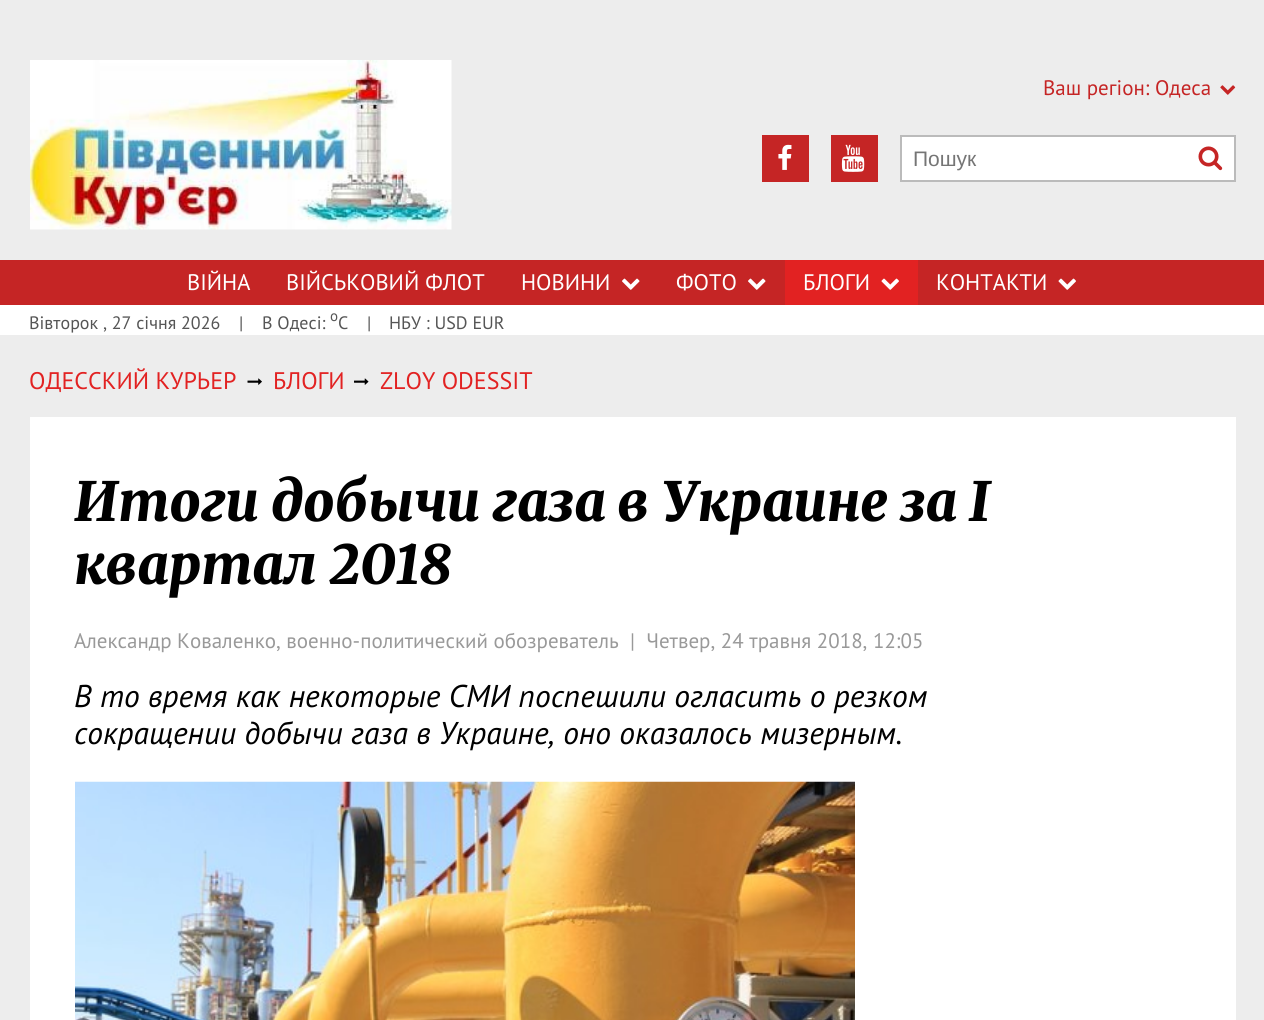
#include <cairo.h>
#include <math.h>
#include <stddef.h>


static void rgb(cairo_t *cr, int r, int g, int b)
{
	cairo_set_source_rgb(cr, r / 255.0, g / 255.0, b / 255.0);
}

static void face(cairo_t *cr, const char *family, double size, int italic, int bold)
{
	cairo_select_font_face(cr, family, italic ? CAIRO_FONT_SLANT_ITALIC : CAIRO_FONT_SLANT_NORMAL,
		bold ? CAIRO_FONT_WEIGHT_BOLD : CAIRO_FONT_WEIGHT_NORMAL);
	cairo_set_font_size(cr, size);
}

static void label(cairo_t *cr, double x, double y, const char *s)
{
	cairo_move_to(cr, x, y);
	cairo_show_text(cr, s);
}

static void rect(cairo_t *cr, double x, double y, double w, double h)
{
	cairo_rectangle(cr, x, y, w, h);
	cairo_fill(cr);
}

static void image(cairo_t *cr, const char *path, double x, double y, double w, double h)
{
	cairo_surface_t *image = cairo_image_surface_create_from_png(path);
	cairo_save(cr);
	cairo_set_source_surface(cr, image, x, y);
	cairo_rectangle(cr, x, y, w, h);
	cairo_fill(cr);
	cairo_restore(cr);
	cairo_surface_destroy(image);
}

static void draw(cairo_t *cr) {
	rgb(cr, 237, 237, 237);
	cairo_paint(cr);
	image(cr, "image0.png", 30, 60, 422, 170);
	face(cr, "PT Sans", 21, 0, 0);
	rgb(cr, 197, 37, 37);
	label(cr, 1043, 95, "Ваш регіон: Одеса");
	image(cr, "image1.png", 1220, 85, 16, 10);
	rect(cr, 762, 135, 47, 47);
	image(cr, "image2.png", 778, 144, 14, 26);
	rect(cr, 831, 135, 47, 47);
	image(cr, "image3.png", 841, 144, 24, 28);
	rgb(cr, 255, 255, 255);
	cairo_rectangle(cr, 901, 136, 334, 45);
	cairo_fill_preserve(cr);
	rgb(cr, 187, 187, 187);
	cairo_stroke(cr);
	face(cr, "Liberation Sans", 21, 0, 0);
	rgb(cr, 117, 117, 117);
	label(cr, 913, 166, "Пошук");
	image(cr, "image4.png", 1198, 146, 25, 25);
	rgb(cr, 197, 37, 37);
	rect(cr, 0, 260, 1264, 45);
	face(cr, "PT Sans", 22.5, 0, 0);
	rgb(cr, 255, 255, 255);
	label(cr, 187, 290, "ВІЙНА");
	label(cr, 286, 290, "ВІЙСЬКОВИЙ ФЛОТ");
	label(cr, 521, 290, "НОВИНИ");
	image(cr, "image5.png", 622, 278, 18, 12);
	label(cr, 676, 290, "ФОТО");
	image(cr, "image5.png", 748, 278, 18, 12);
	rgb(cr, 226, 34, 34);
	rect(cr, 785, 260, 133, 45);
	rgb(cr, 255, 255, 255);
	label(cr, 803, 290, "БЛОГИ");
	image(cr, "image6.png", 881, 278, 18, 12);
	label(cr, 936, 290, "КОНТАКТИ");
	image(cr, "image7.png", 1058, 278, 18, 12);
	rect(cr, 0, 305, 1264, 30);
	face(cr, "PT Sans", 18, 0, 0);
	rgb(cr, 85, 85, 85);
	label(cr, 29, 329, "Вівторок , 27 січня 2026");
	label(cr, 239, 329, "|");
	label(cr, 262, 329, "В Одесі:");
	face(cr, "PT Sans", 15, 0, 0);
	label(cr, 330, 321, "о");
	face(cr, "PT Sans", 18, 0, 0);
	label(cr, 338, 329, "С");
	label(cr, 367, 329, "|");
	label(cr, 389, 329, "НБУ : USD EUR");
	face(cr, "PT Sans", 24, 0, 0);
	rgb(cr, 226, 34, 34);
	label(cr, 29, 389, "ОДЕССКИЙ КУРЬЕР");
	image(cr, "image8.png", 247, 378, 15, 7);
	label(cr, 273, 389, "БЛОГИ");
	image(cr, "image9.png", 354, 378, 15, 7);
	label(cr, 380, 389, "ZLOY ODESSIT");
	rgb(cr, 255, 255, 255);
	rect(cr, 30, 417, 1206, 603);
	face(cr, "Merriweather Light", 54, 1, 0);
	rgb(cr, 0, 0, 0);
	label(cr, 74, 521, "Итоги добычи газа в Украине за I");
	label(cr, 74, 584, "квартал 2018");
	face(cr, "PT Sans", 21, 0, 0);
	rgb(cr, 153, 153, 153);
	label(cr, 74, 648, "Александр Коваленко, военно-политический обозреватель  |  Четвер, 24 травня 2018, 12:05");
	face(cr, "PT Sans", 31.5, 1, 0);
	rgb(cr, 0, 0, 0);
	label(cr, 74, 707, "В то время как некоторые СМИ поспешили огласить о резком");
	label(cr, 74, 744, "сокращении добычи газа в Украине, оно оказалось мизерным.");
	image(cr, "image10.png", 75, 781, 780, 239);
}

int main(void) {
	cairo_surface_t *surface = cairo_image_surface_create(CAIRO_FORMAT_RGB24, 1264, 1020);
	cairo_t *cr = cairo_create(surface);
	cairo_font_options_t *options = cairo_font_options_create();
	cairo_font_options_set_hint_metrics(options, CAIRO_HINT_METRICS_OFF);
	cairo_font_options_set_hint_style(options, CAIRO_HINT_STYLE_NONE);
	cairo_set_font_options(cr, options);
	cairo_set_miter_limit(cr, 4);
	draw(cr);
	cairo_surface_write_to_png(surface, "render.png");
	cairo_font_options_destroy(options);
	cairo_destroy(cr);
	cairo_surface_destroy(surface);
	return 0;
}
